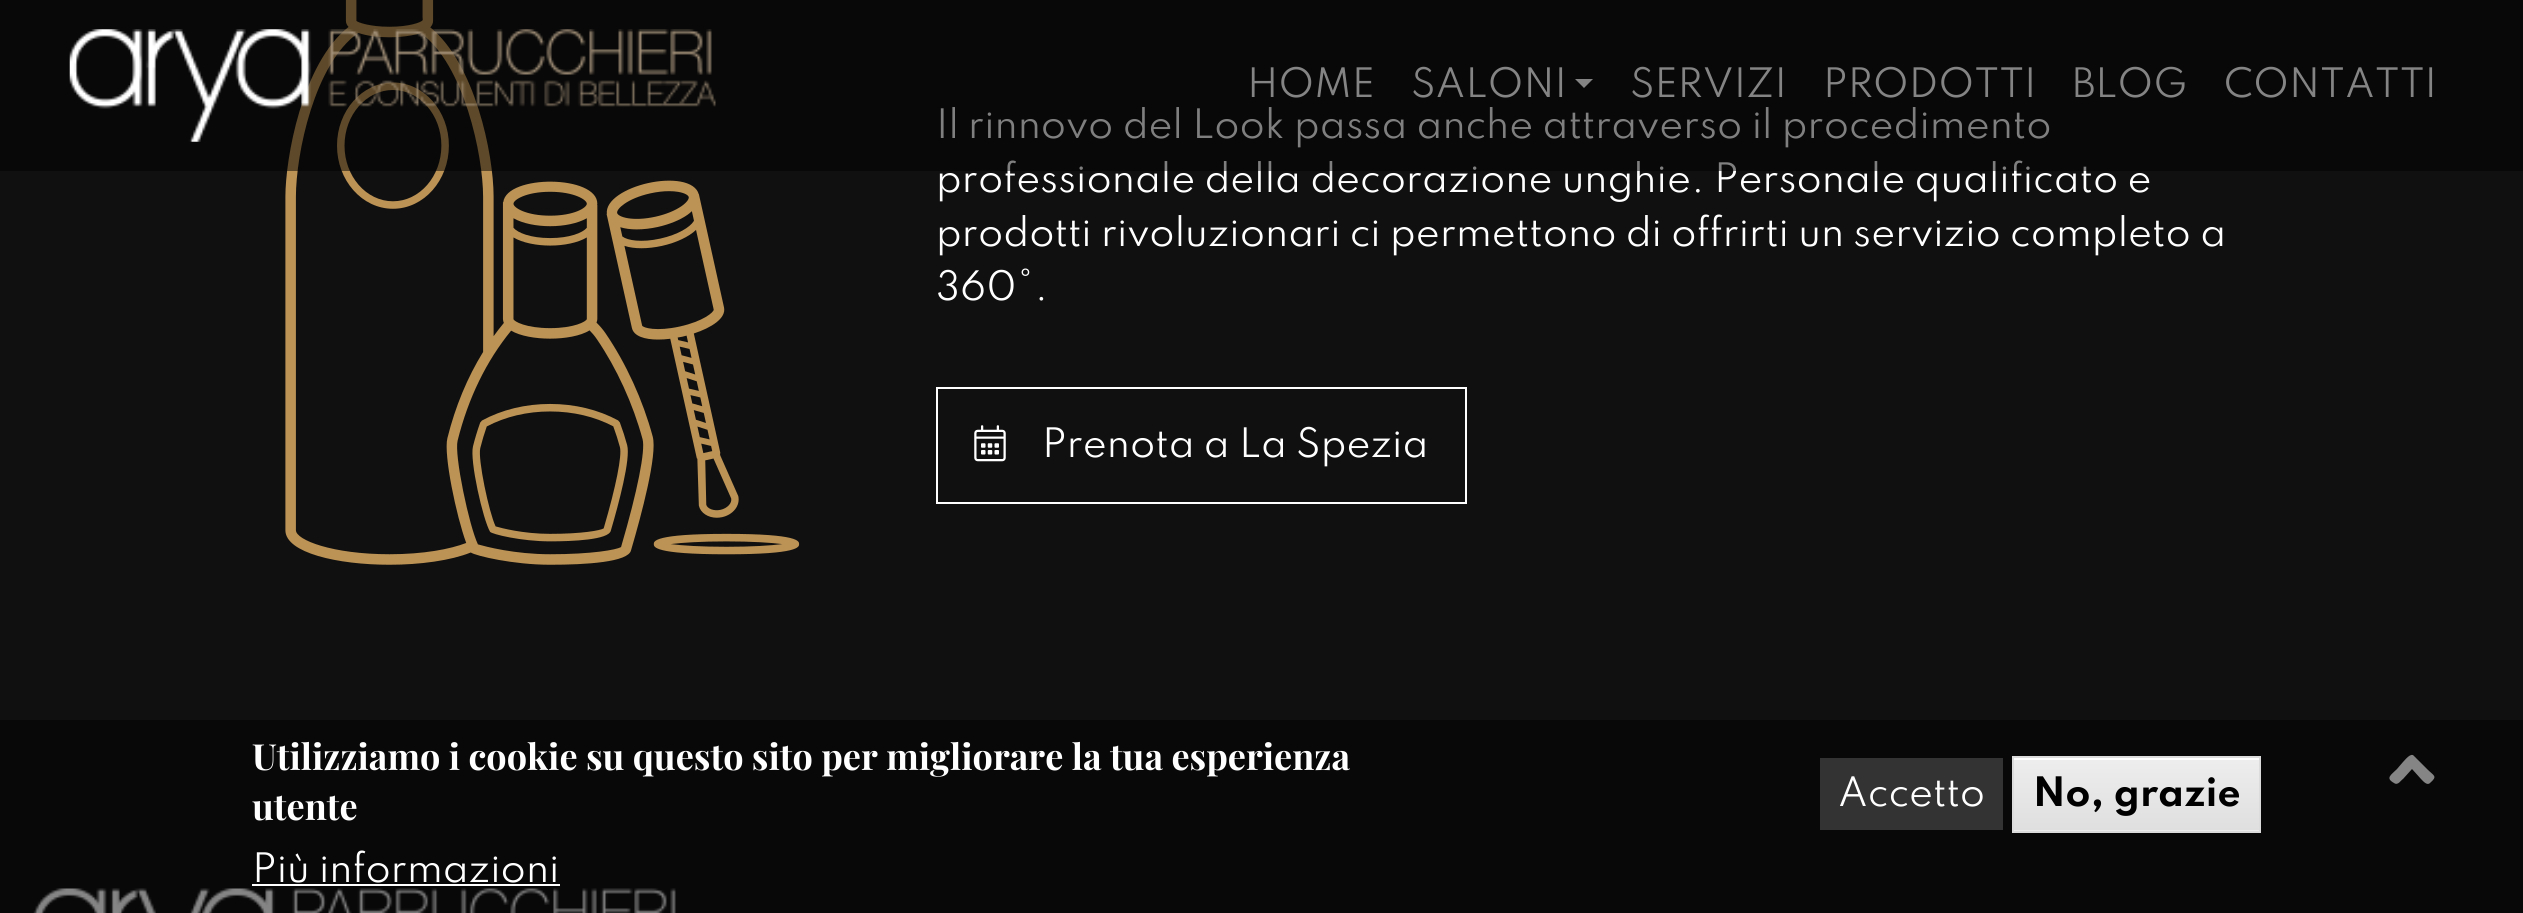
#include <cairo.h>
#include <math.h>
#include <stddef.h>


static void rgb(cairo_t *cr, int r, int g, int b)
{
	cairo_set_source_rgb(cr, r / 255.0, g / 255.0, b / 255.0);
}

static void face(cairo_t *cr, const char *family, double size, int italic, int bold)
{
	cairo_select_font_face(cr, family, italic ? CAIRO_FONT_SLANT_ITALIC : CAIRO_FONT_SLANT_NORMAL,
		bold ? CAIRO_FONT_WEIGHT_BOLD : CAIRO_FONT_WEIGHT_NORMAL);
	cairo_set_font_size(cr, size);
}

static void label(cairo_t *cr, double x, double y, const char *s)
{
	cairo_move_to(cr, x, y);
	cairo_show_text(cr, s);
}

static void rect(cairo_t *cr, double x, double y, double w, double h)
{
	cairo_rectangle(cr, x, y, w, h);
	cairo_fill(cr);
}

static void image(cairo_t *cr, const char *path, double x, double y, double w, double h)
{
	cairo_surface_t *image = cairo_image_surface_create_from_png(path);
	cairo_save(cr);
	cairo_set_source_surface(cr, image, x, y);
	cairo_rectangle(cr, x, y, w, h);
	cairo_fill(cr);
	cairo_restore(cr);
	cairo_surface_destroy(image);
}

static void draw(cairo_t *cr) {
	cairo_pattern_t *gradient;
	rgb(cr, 17, 16, 16);
	cairo_paint(cr);
	image(cr, "image1.png", 285, 0, 515, 565);
	face(cr, "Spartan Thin", 36, 0, 0);
	rgb(cr, 255, 255, 255);
	label(cr, 936, 138, "Il rinnovo del Look passa anche attraverso il procedimento");
	label(cr, 936, 192, "professionale della decorazione unghie. Personale qualificato e");
	cairo_set_source_rgba(cr, 0, 0, 0, 0.5);
	rect(cr, 0, 0, 2523, 171);
	image(cr, "image0.png", 69, 29, 647, 113);
	rgb(cr, 132, 132, 132);
	label(cr, 1247, 97, "HOME");
	label(cr, 1411, 97, "SALONI");
	cairo_new_path(cr);
	cairo_move_to(cr, 1575, 79);
	cairo_line_to(cr, 1593, 79);
	cairo_line_to(cr, 1584, 88);
	cairo_close_path(cr);
	cairo_fill(cr);
	label(cr, 1630, 97, "SERVIZI");
	label(cr, 1823, 97, "PRODOTTI");
	label(cr, 2072, 97, "BLOG");
	label(cr, 2224, 97, "CONTATTI");
	rgb(cr, 9, 8, 8);
	rect(cr, 0, 720, 2523, 193);
	rgb(cr, 255, 255, 255);
	label(cr, 936, 246, "prodotti rivoluzionari ci permettono di offrirti un servizio completo a");
	label(cr, 936, 300, "360°.");
	cairo_rectangle(cr, 937, 388, 529, 115);
	cairo_stroke(cr);
	image(cr, "image2.png", 974, 425, 32, 37);
	label(cr, 1042, 457, "Prenota a La Spezia");
	image(cr, "image3.png", 33, 888, 643, 25);
	rgb(cr, 133, 133, 133);
	cairo_new_path(cr);
	cairo_move_to(cr, 2414, 756);
	cairo_line_to(cr, 2427, 769);
	cairo_curve_to(cr, 2434, 776, 2438, 776, 2430, 783);
	cairo_curve_to(cr, 2427, 786, 2423, 781, 2421, 779);
	cairo_line_to(cr, 2412, 769);
	cairo_line_to(cr, 2403, 779);
	cairo_curve_to(cr, 2401, 780, 2398, 786, 2394, 783);
	cairo_curve_to(cr, 2385, 778, 2391, 775, 2397, 769);
	cairo_line_to(cr, 2403, 762);
	cairo_curve_to(cr, 2405, 760, 2411, 752, 2414, 756);
	cairo_close_path(cr);
	cairo_fill(cr);
	face(cr, "Playfair Display", 36, 0, 1);
	rgb(cr, 255, 255, 255);
	label(cr, 252, 770, "Utilizziamo i cookie su questo sito per migliorare la tua esperienza");
	label(cr, 252, 820, "utente");
	face(cr, "Spartan Thin", 36, 0, 0);
	label(cr, 252, 882, "Più informazioni");
	rect(cr, 252, 884, 308, 2);
	rgb(cr, 51, 51, 51);
	rect(cr, 1820, 758, 183, 72);
	rgb(cr, 255, 255, 255);
	label(cr, 1838, 806, "Accetto");
	rgb(cr, 237, 237, 237);
	rect(cr, 2014, 830, 245, 1);
	gradient = cairo_pattern_create_linear(2136, 758, 2136, 830);
	cairo_pattern_add_color_stop_rgba(gradient, 0.05, 0.929, 0.929, 0.929, 1);
	cairo_pattern_add_color_stop_rgba(gradient, 1, 0.875, 0.875, 0.875, 1);
	cairo_set_source(cr, gradient);
	cairo_pattern_destroy(gradient);
	rect(cr, 2014, 760, 245, 70);
	rgb(cr, 255, 255, 255);
	rect(cr, 2014, 758, 245, 2);
	cairo_rectangle(cr, 2013, 757, 247, 75);
	rgb(cr, 220, 220, 220);
	cairo_stroke(cr);
	face(cr, "Spartan Thin", 36, 0, 1);
	rgb(cr, 0, 0, 0);
	label(cr, 2033, 806, "No, grazie");
}

int main(void) {
	cairo_surface_t *surface = cairo_image_surface_create(CAIRO_FORMAT_RGB24, 2523, 913);
	cairo_t *cr = cairo_create(surface);
	cairo_font_options_t *options = cairo_font_options_create();
	cairo_font_options_set_hint_metrics(options, CAIRO_HINT_METRICS_OFF);
	cairo_font_options_set_hint_style(options, CAIRO_HINT_STYLE_NONE);
	cairo_set_font_options(cr, options);
	cairo_set_miter_limit(cr, 4);
	draw(cr);
	cairo_surface_write_to_png(surface, "render.png");
	cairo_font_options_destroy(options);
	cairo_destroy(cr);
	cairo_surface_destroy(surface);
	return 0;
}
